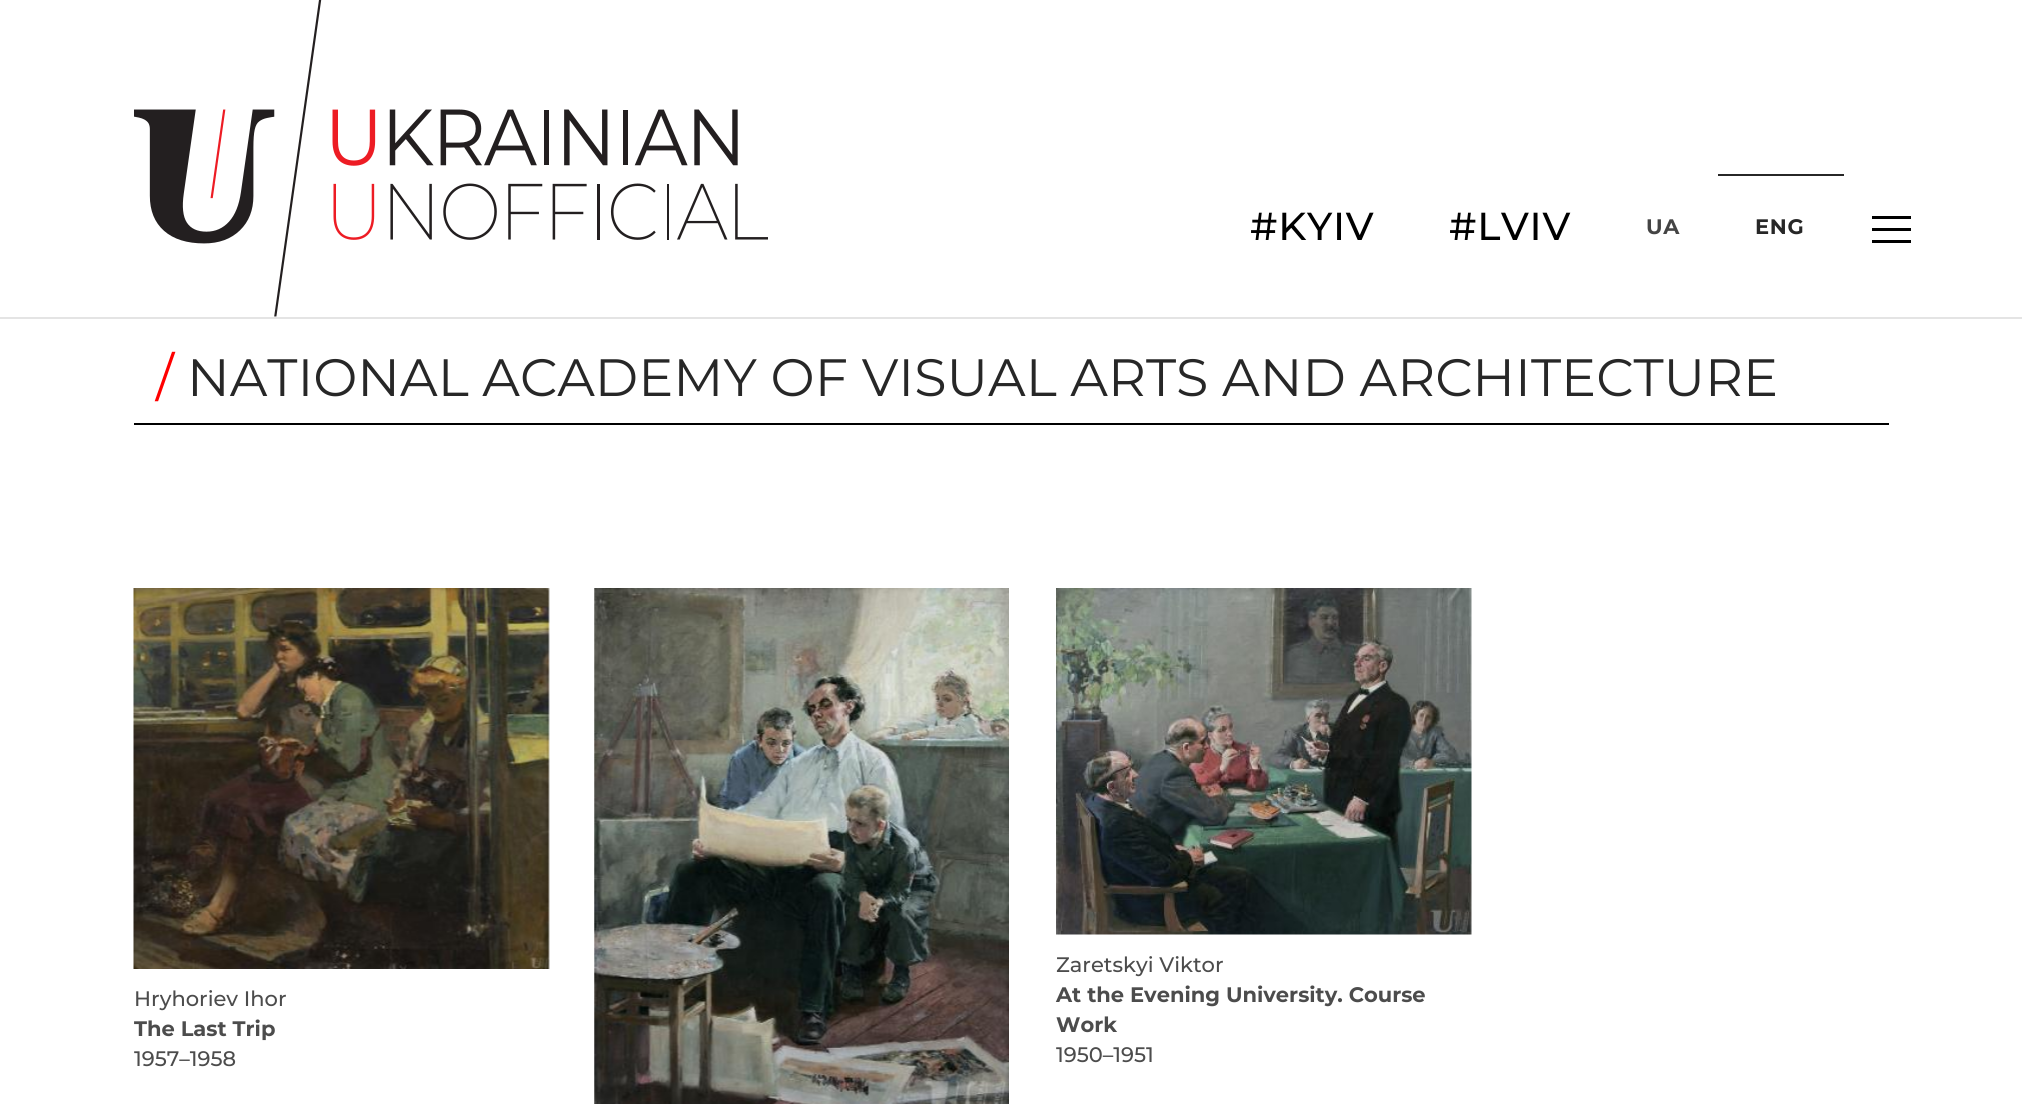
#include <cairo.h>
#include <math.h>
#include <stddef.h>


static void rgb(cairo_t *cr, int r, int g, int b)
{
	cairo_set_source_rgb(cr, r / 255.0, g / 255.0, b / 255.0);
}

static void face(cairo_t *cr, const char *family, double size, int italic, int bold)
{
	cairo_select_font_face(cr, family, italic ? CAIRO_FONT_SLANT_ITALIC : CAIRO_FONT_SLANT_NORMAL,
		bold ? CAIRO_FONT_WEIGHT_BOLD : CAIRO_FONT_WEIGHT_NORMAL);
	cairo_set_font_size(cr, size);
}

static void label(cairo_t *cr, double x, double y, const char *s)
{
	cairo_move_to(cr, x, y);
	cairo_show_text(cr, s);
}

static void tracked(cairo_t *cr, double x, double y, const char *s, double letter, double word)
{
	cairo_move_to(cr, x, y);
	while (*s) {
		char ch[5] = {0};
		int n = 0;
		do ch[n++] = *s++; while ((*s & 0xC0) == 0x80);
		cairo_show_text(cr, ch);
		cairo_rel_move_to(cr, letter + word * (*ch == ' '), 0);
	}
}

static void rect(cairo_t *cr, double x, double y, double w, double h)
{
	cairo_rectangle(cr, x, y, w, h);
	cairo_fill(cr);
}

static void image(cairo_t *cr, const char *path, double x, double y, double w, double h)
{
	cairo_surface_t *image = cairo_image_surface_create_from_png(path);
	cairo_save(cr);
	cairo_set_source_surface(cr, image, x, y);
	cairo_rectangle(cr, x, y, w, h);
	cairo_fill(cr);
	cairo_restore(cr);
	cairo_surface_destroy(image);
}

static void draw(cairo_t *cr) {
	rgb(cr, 255, 255, 255);
	cairo_paint(cr);
	rgb(cr, 228, 228, 228);
	rect(cr, 0, 317, 2022, 2);
	image(cr, "image0.png", 134, 0, 634, 317);
	face(cr, "Montserrat Medium", 39, 0, 0);
	rgb(cr, 0, 0, 0);
	tracked(cr, 1250, 240, "#KYIV", 0.75, 0);
	tracked(cr, 1449, 240, "#LVIV", 0.75, 0);
	face(cr, "Montserrat", 21, 0, 1);
	rgb(cr, 68, 68, 68);
	tracked(cr, 1646, 234, "UA", 0.75, 0);
	rgb(cr, 39, 39, 39);
	rect(cr, 1718, 174, 126, 2);
	tracked(cr, 1755, 234, "ENG", 0.75, 0);
	rgb(cr, 0, 0, 0);
	rect(cr, 1872, 228, 39, 3);
	rect(cr, 1872, 216, 39, 3);
	rect(cr, 1872, 240, 39, 3);
	rect(cr, 134, 423, 1755, 2);
	face(cr, "Montserrat", 52.5, 0, 0);
	rgb(cr, 255, 0, 0);
	label(cr, 156, 396, "/");
	rgb(cr, 39, 39, 39);
	label(cr, 187, 396, "NATIONAL ACADEMY OF VISUAL ARTS AND ARCHITECTURE");
	image(cr, "image1.png", 133, 588, 417, 381);
	face(cr, "Montserrat Medium", 21, 0, 0);
	rgb(cr, 76, 76, 76);
	label(cr, 134, 1006, "Hryhoriev Ihor");
	face(cr, "Montserrat", 21, 0, 1);
	label(cr, 134, 1036, "The Last Trip");
	face(cr, "Montserrat Medium", 21, 0, 0);
	label(cr, 134, 1066, "1957–1958");
	image(cr, "image2.png", 594, 588, 415, 516);
	image(cr, "image3.png", 1056, 588, 416, 347);
	label(cr, 1056, 972, "Zaretskyi Viktor");
	face(cr, "Montserrat", 21, 0, 1);
	label(cr, 1056, 1002, "At the Evening University. Course");
	label(cr, 1056, 1032, "Work");
	face(cr, "Montserrat Medium", 21, 0, 0);
	label(cr, 1056, 1062, "1950–1951");
}

int main(void) {
	cairo_surface_t *surface = cairo_image_surface_create(CAIRO_FORMAT_RGB24, 2022, 1104);
	cairo_t *cr = cairo_create(surface);
	cairo_font_options_t *options = cairo_font_options_create();
	cairo_font_options_set_hint_metrics(options, CAIRO_HINT_METRICS_OFF);
	cairo_font_options_set_hint_style(options, CAIRO_HINT_STYLE_NONE);
	cairo_set_font_options(cr, options);
	cairo_set_miter_limit(cr, 4);
	draw(cr);
	cairo_surface_write_to_png(surface, "render.png");
	cairo_font_options_destroy(options);
	cairo_destroy(cr);
	cairo_surface_destroy(surface);
	return 0;
}
